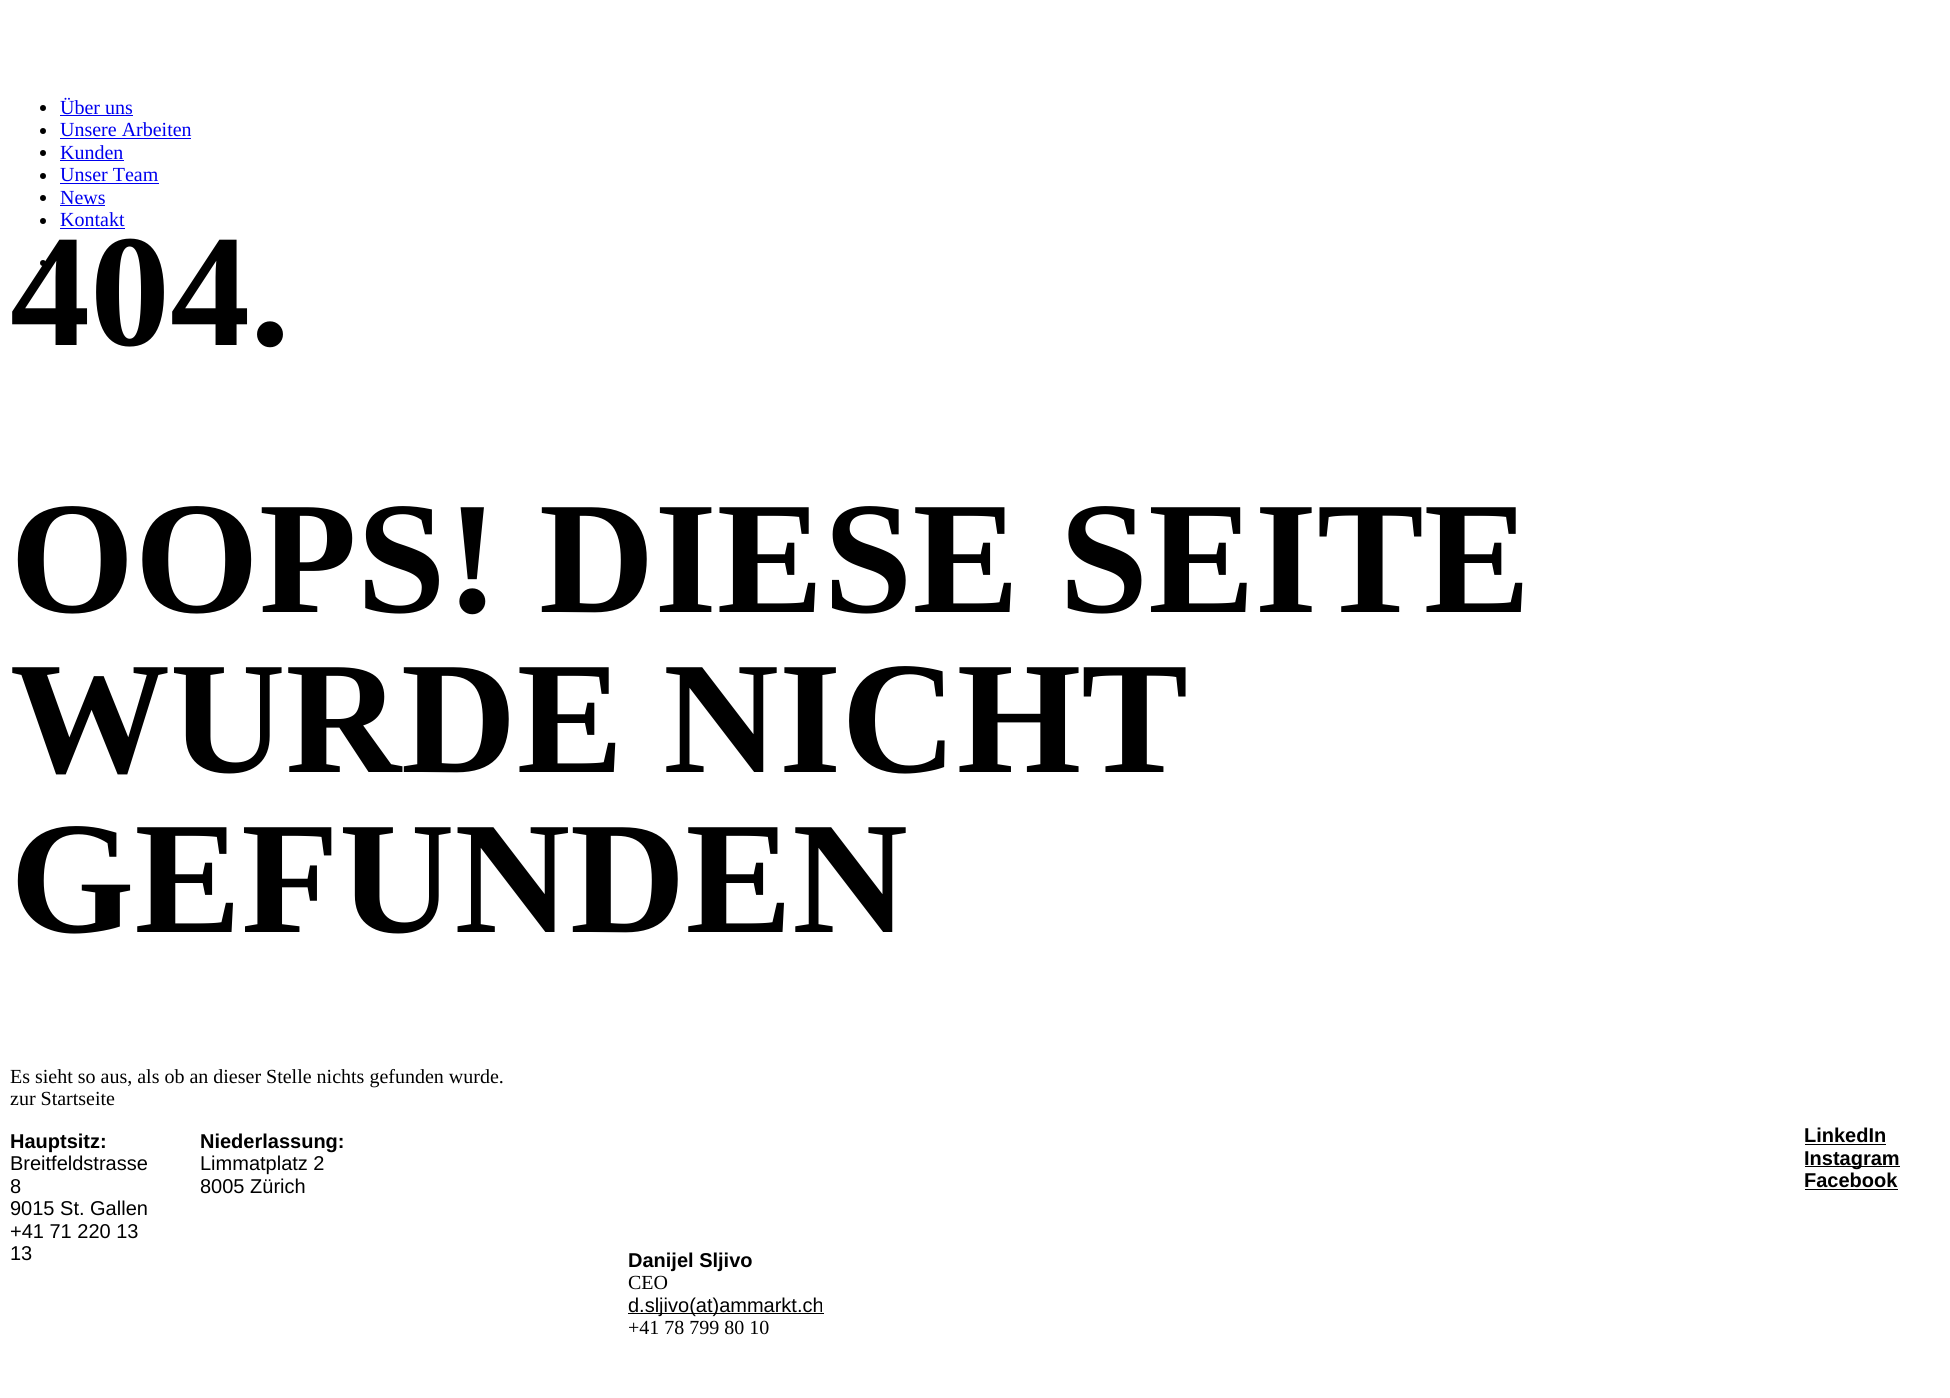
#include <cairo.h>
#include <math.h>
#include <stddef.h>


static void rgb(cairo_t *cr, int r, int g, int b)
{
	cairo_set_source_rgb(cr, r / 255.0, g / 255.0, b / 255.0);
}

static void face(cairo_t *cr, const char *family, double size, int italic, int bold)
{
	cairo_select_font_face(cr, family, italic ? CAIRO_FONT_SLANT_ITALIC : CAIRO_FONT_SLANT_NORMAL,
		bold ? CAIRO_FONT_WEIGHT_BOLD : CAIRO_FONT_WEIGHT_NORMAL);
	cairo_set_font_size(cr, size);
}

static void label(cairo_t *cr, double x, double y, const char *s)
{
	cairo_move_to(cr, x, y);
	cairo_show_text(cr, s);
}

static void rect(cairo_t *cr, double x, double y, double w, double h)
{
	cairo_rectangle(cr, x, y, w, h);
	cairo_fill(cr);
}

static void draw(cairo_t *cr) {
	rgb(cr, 255, 255, 255);
	cairo_paint(cr);
	rgb(cr, 0, 0, 0);
	cairo_arc(cr, 43, 108, 3, 0, 2 * M_PI);
	cairo_fill(cr);
	face(cr, "Liberation Serif", 20, 0, 0);
	rgb(cr, 0, 0, 238);
	label(cr, 60, 114, "Über uns");
	rect(cr, 60, 115, 73, 1);
	rgb(cr, 0, 0, 0);
	cairo_new_path(cr);
	cairo_arc(cr, 43, 131, 3, 0, 2 * M_PI);
	cairo_fill(cr);
	rgb(cr, 0, 0, 238);
	label(cr, 60, 136, "Unsere Arbeiten");
	rect(cr, 60, 138, 131, 1);
	rgb(cr, 0, 0, 0);
	cairo_new_path(cr);
	cairo_arc(cr, 43, 153, 3, 0, 2 * M_PI);
	cairo_fill(cr);
	rgb(cr, 0, 0, 238);
	label(cr, 60, 159, "Kunden");
	rect(cr, 60, 160, 64, 1);
	rgb(cr, 0, 0, 0);
	cairo_new_path(cr);
	cairo_arc(cr, 43, 176, 3, 0, 2 * M_PI);
	cairo_fill(cr);
	rgb(cr, 0, 0, 238);
	label(cr, 60, 181, "Unser Team");
	rect(cr, 60, 183, 99, 1);
	rgb(cr, 0, 0, 0);
	cairo_new_path(cr);
	cairo_arc(cr, 43, 198, 3, 0, 2 * M_PI);
	cairo_fill(cr);
	rgb(cr, 0, 0, 238);
	label(cr, 60, 204, "News");
	rect(cr, 60, 205, 45, 1);
	rgb(cr, 0, 0, 0);
	cairo_new_path(cr);
	cairo_arc(cr, 43, 221, 3, 0, 2 * M_PI);
	cairo_fill(cr);
	rgb(cr, 0, 0, 238);
	label(cr, 60, 226, "Kontakt");
	rect(cr, 60, 228, 65, 1);
	rgb(cr, 0, 0, 0);
	cairo_new_path(cr);
	cairo_arc(cr, 43, 263, 3, 0, 2 * M_PI);
	cairo_fill(cr);
	face(cr, "Liberation Serif", 160, 0, 1);
	label(cr, 10, 345, "404.");
	label(cr, 10, 612, "OOPS! DIESE SEITE");
	label(cr, 10, 772, "WURDE NICHT");
	label(cr, 10, 932, "GEFUNDEN");
	face(cr, "Liberation Serif", 20, 0, 0);
	label(cr, 10, 1083, "Es sieht so aus, als ob an dieser Stelle nichts gefunden wurde.");
	label(cr, 10, 1105, "zur Startseite");
	face(cr, "Liberation Sans", 20, 0, 1);
	label(cr, 10, 1148, "Hauptsitz:");
	face(cr, "Liberation Sans", 20, 0, 0);
	label(cr, 10, 1170, "Breitfeldstrasse");
	label(cr, 10, 1193, "8");
	label(cr, 10, 1215, "9015 St. Gallen");
	label(cr, 10, 1238, "+41 71 220 13");
	label(cr, 10, 1260, "13");
	face(cr, "Liberation Sans", 20, 0, 1);
	label(cr, 200, 1148, "Niederlassung:");
	face(cr, "Liberation Sans", 20, 0, 0);
	label(cr, 200, 1170, "Limmatplatz 2");
	label(cr, 200, 1193, "8005 Zürich");
	face(cr, "Liberation Sans", 20, 0, 1);
	label(cr, 1804, 1142, "LinkedIn");
	rect(cr, 1805, 1144, 81, 1);
	rect(cr, 1805, 1166, 95, 1);
	label(cr, 1804, 1165, "Instagram");
	label(cr, 1804, 1187, "Facebook");
	rect(cr, 1805, 1189, 93, 1);
	label(cr, 628, 1267, "Danijel Sljivo");
	face(cr, "Liberation Serif", 20, 0, 0);
	label(cr, 628, 1289, "CEO");
	rect(cr, 628, 1313, 196, 1);
	face(cr, "Liberation Sans", 20, 0, 0);
	label(cr, 628, 1312, "d.sljivo(at)ammarkt.ch");
	face(cr, "Liberation Serif", 20, 0, 0);
	label(cr, 628, 1334, "+41 78 799 80 10");
}

int main(void) {
	cairo_surface_t *surface = cairo_image_surface_create(CAIRO_FORMAT_RGB24, 1950, 1398);
	cairo_t *cr = cairo_create(surface);
	cairo_font_options_t *options = cairo_font_options_create();
	cairo_font_options_set_hint_metrics(options, CAIRO_HINT_METRICS_OFF);
	cairo_font_options_set_hint_style(options, CAIRO_HINT_STYLE_NONE);
	cairo_set_font_options(cr, options);
	cairo_set_miter_limit(cr, 4);
	draw(cr);
	cairo_surface_write_to_png(surface, "render.png");
	cairo_font_options_destroy(options);
	cairo_destroy(cr);
	cairo_surface_destroy(surface);
	return 0;
}
